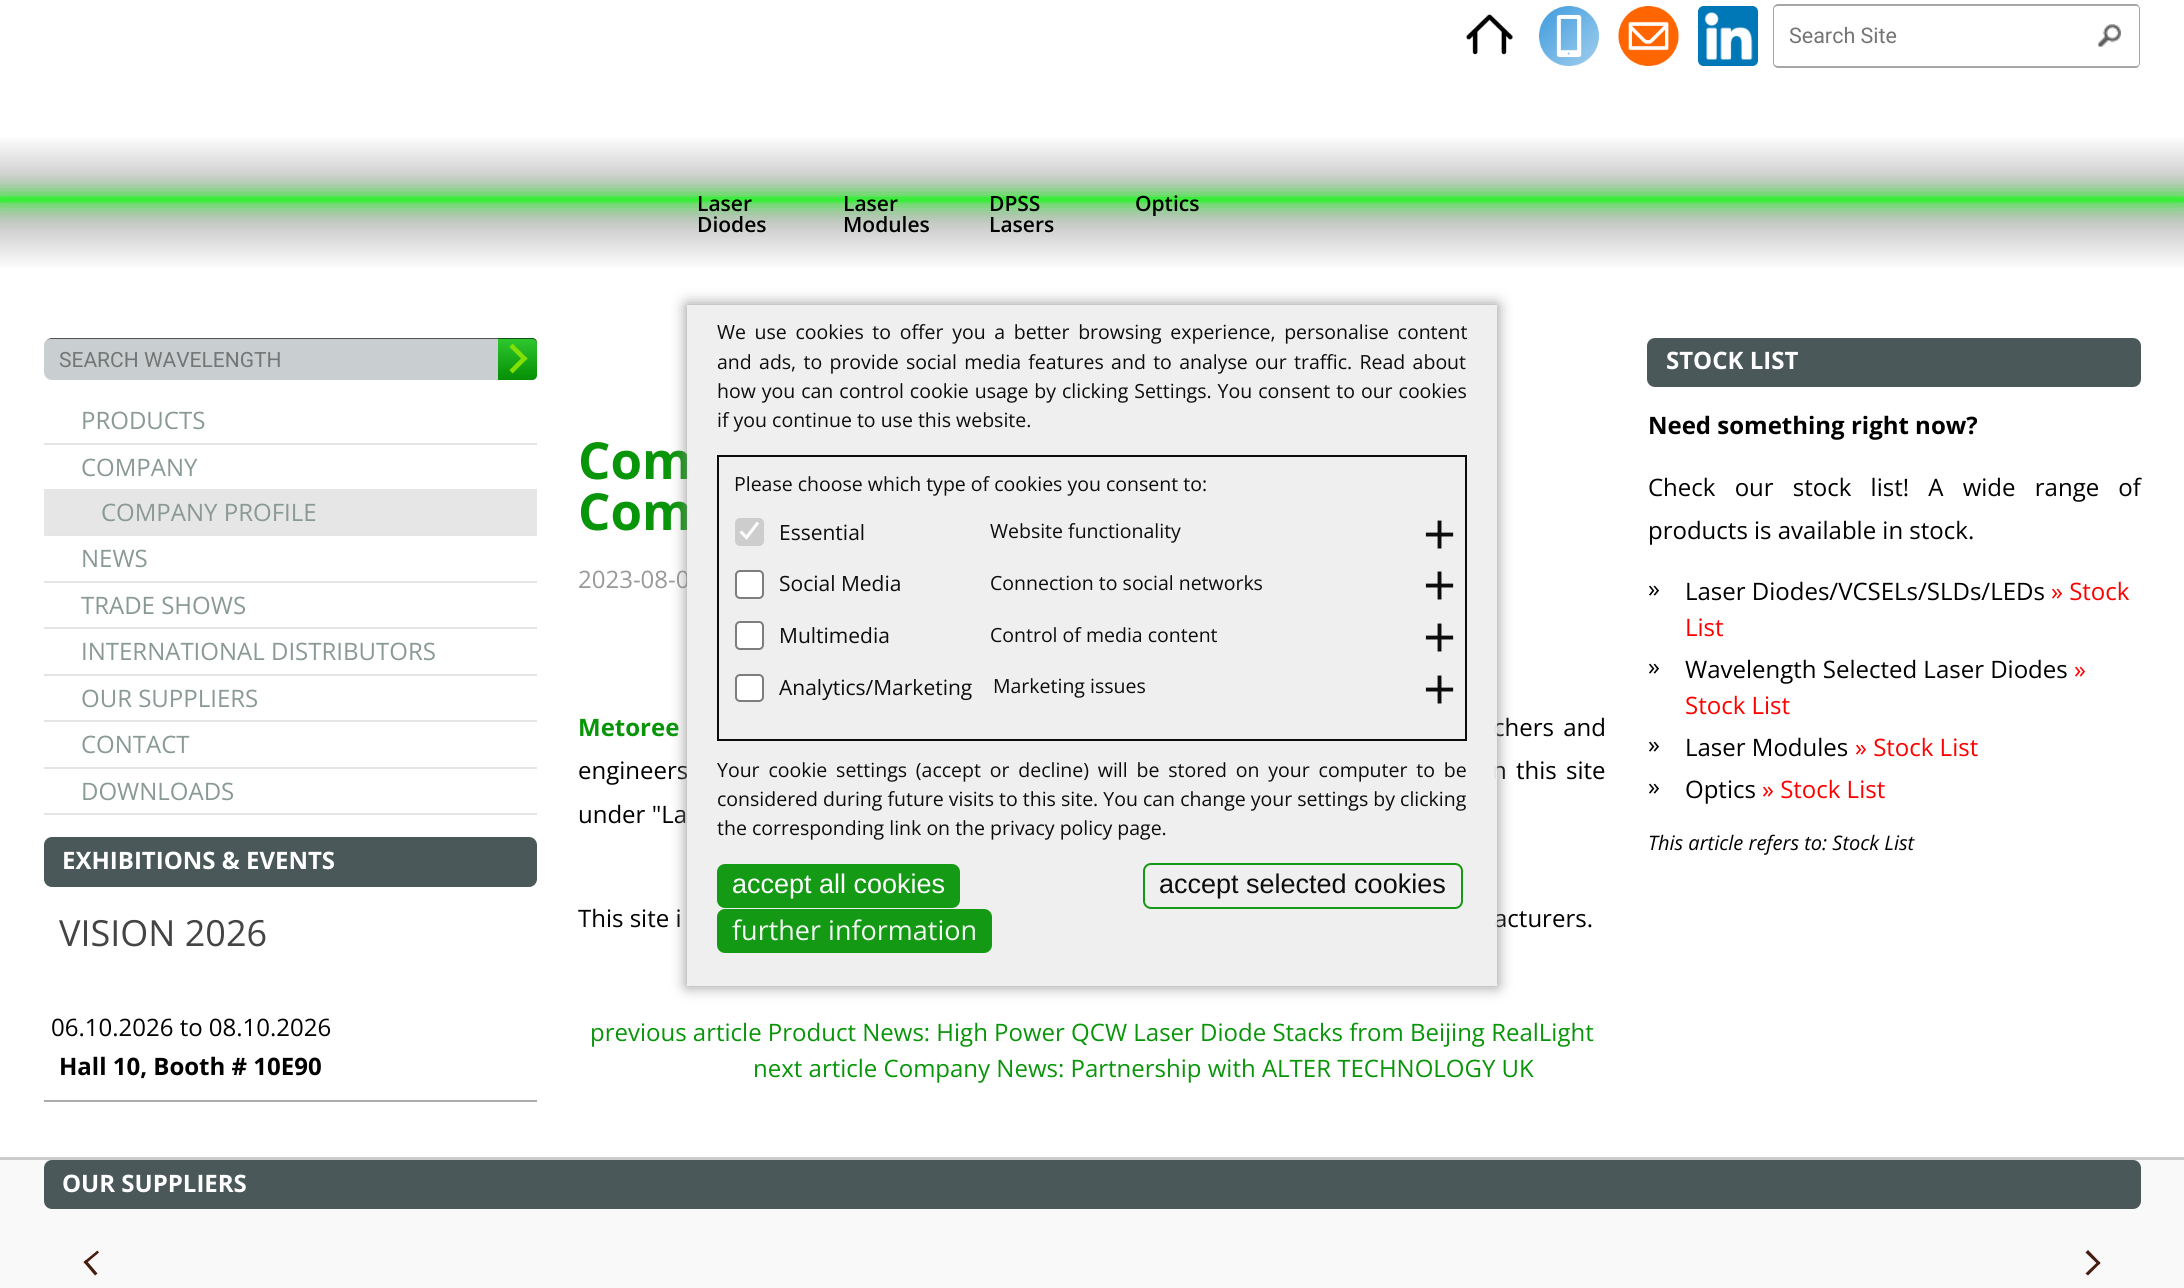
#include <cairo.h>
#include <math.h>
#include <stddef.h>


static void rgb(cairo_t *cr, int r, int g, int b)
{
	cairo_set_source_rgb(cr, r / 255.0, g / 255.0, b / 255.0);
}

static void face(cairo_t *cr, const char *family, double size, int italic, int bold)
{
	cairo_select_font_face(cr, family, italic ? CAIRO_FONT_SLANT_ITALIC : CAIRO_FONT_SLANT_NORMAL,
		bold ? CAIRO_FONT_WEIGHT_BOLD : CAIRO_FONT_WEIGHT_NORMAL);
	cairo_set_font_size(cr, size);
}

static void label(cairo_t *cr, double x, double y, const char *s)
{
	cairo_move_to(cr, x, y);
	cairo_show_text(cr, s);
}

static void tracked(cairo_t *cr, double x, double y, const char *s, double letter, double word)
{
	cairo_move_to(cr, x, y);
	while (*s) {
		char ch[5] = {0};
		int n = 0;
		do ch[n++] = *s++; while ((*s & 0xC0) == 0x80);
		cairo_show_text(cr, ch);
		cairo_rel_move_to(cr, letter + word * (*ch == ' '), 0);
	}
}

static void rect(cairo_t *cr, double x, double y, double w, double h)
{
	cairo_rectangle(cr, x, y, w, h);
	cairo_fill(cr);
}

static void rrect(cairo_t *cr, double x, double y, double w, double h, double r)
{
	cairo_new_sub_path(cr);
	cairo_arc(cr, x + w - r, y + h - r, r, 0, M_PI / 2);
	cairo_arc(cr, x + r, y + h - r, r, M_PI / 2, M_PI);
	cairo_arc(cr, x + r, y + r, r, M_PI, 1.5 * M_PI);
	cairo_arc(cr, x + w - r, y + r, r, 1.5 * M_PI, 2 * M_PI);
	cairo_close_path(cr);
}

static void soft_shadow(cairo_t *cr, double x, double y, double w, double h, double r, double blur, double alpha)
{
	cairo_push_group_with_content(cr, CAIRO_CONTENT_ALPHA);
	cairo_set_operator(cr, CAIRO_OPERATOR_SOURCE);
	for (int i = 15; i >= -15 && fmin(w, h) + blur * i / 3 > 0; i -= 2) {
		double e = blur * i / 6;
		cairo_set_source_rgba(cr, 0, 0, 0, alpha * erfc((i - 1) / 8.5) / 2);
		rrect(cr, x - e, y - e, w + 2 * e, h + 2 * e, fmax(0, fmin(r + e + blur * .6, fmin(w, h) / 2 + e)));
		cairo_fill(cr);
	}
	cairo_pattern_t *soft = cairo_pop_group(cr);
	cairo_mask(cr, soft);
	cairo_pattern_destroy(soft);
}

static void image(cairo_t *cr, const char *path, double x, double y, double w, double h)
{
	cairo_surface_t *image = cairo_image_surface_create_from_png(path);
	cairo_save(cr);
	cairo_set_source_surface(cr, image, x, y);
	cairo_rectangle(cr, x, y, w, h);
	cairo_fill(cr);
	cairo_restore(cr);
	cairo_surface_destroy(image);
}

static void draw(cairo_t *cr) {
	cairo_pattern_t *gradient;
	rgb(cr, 255, 255, 255);
	cairo_paint(cr);
	image(cr, "image0.png", 1466, 14, 47, 41);
	image(cr, "image1.png", 1539, 6, 60, 60);
	image(cr, "image2.png", 1618, 6, 61, 60);
	image(cr, "image3.png", 1698, 6, 60, 60);
	rgb(cr, 166, 166, 166);
	cairo_set_fill_rule(cr, CAIRO_FILL_RULE_EVEN_ODD);
	cairo_new_path(cr);
	cairo_move_to(cr, 1778, 4);
	cairo_line_to(cr, 2079, 4);
	cairo_line_to(cr, 2079, 68);
	cairo_line_to(cr, 1778, 68);
	cairo_curve_to(cr, 1775, 68, 1773, 65, 1773, 63);
	cairo_line_to(cr, 1773, 9);
	cairo_curve_to(cr, 1773, 7, 1775, 4, 1778, 4);
	cairo_close_path(cr);
	cairo_move_to(cr, 1778, 6);
	cairo_line_to(cr, 2079, 6);
	cairo_line_to(cr, 2079, 66);
	cairo_line_to(cr, 1778, 66);
	cairo_curve_to(cr, 1776, 66, 1774, 65, 1774, 63);
	cairo_line_to(cr, 1774, 9);
	cairo_curve_to(cr, 1774, 7, 1776, 6, 1778, 6);
	cairo_close_path(cr);
	cairo_fill(cr);
	face(cr, "Roboto", 21.5, 0, 0);
	rgb(cr, 117, 117, 117);
	label(cr, 1789, 43, "Search Site");
	rgb(cr, 166, 166, 166);
	cairo_new_path(cr);
	cairo_move_to(cr, 2079, 4);
	cairo_line_to(cr, 2136, 4);
	cairo_curve_to(cr, 2138, 4, 2140, 7, 2140, 9);
	cairo_line_to(cr, 2140, 63);
	cairo_curve_to(cr, 2140, 65, 2138, 68, 2136, 68);
	cairo_line_to(cr, 2079, 68);
	cairo_close_path(cr);
	cairo_move_to(cr, 2079, 6);
	cairo_line_to(cr, 2136, 6);
	cairo_curve_to(cr, 2138, 6, 2139, 7, 2139, 9);
	cairo_line_to(cr, 2139, 63);
	cairo_curve_to(cr, 2139, 65, 2138, 66, 2136, 66);
	cairo_line_to(cr, 2079, 66);
	cairo_close_path(cr);
	cairo_fill(cr);
	image(cr, "image4.png", 2097, 24, 24, 24);
	gradient = cairo_pattern_create_linear(1092, 67, 1092, 338);
	cairo_pattern_add_color_stop_rgba(gradient, 0, 1, 1, 1, 1);
	cairo_pattern_add_color_stop_rgba(gradient, 0.25, 1, 1, 1, 1);
	cairo_pattern_add_color_stop_rgba(gradient, 0.45, 0.757, 0.757, 0.757, 1);
	cairo_pattern_add_color_stop_rgba(gradient, 0.55, 0.757, 0.757, 0.757, 1);
	cairo_pattern_add_color_stop_rgba(gradient, 0.75, 1, 1, 1, 1);
	cairo_pattern_add_color_stop_rgba(gradient, 1, 1, 1, 1, 1);
	cairo_set_source(cr, gradient);
	cairo_pattern_destroy(gradient);
	rect(cr, 0, 137, 2184, 131);
	cairo_save(cr);
	cairo_new_path(cr);
	cairo_move_to(cr, 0, 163);
	cairo_line_to(cr, 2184, 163);
	cairo_line_to(cr, 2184, 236);
	cairo_line_to(cr, 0, 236);
	cairo_close_path(cr);
	cairo_move_to(cr, 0, 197);
	cairo_line_to(cr, 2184, 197);
	cairo_line_to(cr, 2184, 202);
	cairo_line_to(cr, 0, 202);
	cairo_close_path(cr);
	cairo_clip(cr);
	rgb(cr, 0, 255, 0);
	soft_shadow(cr, 0, 197, 2184, 5, 0, 11, 1);
	cairo_restore(cr);
	cairo_set_source_rgba(cr, 0, 1, 0, 0.7);
	rect(cr, 0, 197, 2184, 5);
	face(cr, "Open Sans SemiBold", 21, 0, 0);
	rgb(cr, 0, 0, 0);
	label(cr, 697, 211, "Laser");
	label(cr, 697, 232, "Diodes");
	label(cr, 843, 211, "Laser");
	label(cr, 843, 232, "Modules");
	label(cr, 989, 211, "DPSS");
	label(cr, 989, 232, "Lasers");
	label(cr, 1135, 211, "Optics");
	rgb(cr, 201, 207, 208);
	rrect(cr, 44, 338, 493, 42, 8);
	cairo_fill(cr);
	cairo_set_source_rgba(cr, 0, 0, 0, 0.6);
	cairo_set_fill_rule(cr, CAIRO_FILL_RULE_WINDING);
	cairo_new_path(cr);
	cairo_move_to(cr, 51, 339);
	cairo_line_to(cr, 530, 339);
	cairo_curve_to(cr, 534, 339, 537, 342, 537, 346);
	cairo_curve_to(cr, 537, 342, 533, 338, 529, 338);
	cairo_line_to(cr, 52, 338);
	cairo_curve_to(cr, 48, 338, 44, 342, 44, 346);
	cairo_curve_to(cr, 44, 342, 47, 339, 51, 339);
	cairo_close_path(cr);
	cairo_fill(cr);
	face(cr, "Roboto", 21, 0, 0);
	rgb(cr, 117, 117, 117);
	label(cr, 59, 367, "SEARCH WAVELENGTH");
	gradient = cairo_pattern_create_linear(518, 338, 518, 380);
	cairo_pattern_add_color_stop_rgba(gradient, 0.02, 0.184, 0.78, 0.184, 1);
	cairo_pattern_add_color_stop_rgba(gradient, 1, 0.016, 0.561, 0.016, 1);
	cairo_set_source(cr, gradient);
	cairo_pattern_destroy(gradient);
	cairo_new_path(cr);
	cairo_move_to(cr, 498, 338);
	cairo_line_to(cr, 532, 338);
	cairo_curve_to(cr, 535, 338, 537, 340, 537, 343);
	cairo_line_to(cr, 537, 375);
	cairo_curve_to(cr, 537, 378, 535, 380, 532, 380);
	cairo_line_to(cr, 498, 380);
	cairo_close_path(cr);
	cairo_fill(cr);
	cairo_set_source_rgba(cr, 0, 0, 0, 0.6);
	cairo_new_path(cr);
	cairo_move_to(cr, 498, 339);
	cairo_line_to(cr, 532, 339);
	cairo_curve_to(cr, 535, 339, 537, 341, 537, 344);
	cairo_line_to(cr, 537, 343);
	cairo_curve_to(cr, 537, 340, 535, 338, 532, 338);
	cairo_line_to(cr, 498, 338);
	cairo_close_path(cr);
	cairo_fill(cr);
	rgb(cr, 130, 224, 5);
	cairo_new_path(cr);
	cairo_move_to(cr, 512.5, 343.5);
	cairo_line_to(cr, 527.5, 358.5);
	cairo_line_to(cr, 524, 361.5);
	cairo_line_to(cr, 509.5, 347);
	cairo_close_path(cr);
	cairo_fill(cr);
	cairo_new_path(cr);
	cairo_move_to(cr, 524, 355.5);
	cairo_line_to(cr, 527.5, 358.5);
	cairo_line_to(cr, 512.5, 373.5);
	cairo_line_to(cr, 509.5, 370);
	cairo_close_path(cr);
	cairo_fill(cr);
	rgb(cr, 229, 229, 229);
	rect(cr, 44, 443, 493, 2);
	face(cr, "Open Sans", 24, 0, 0);
	rgb(cr, 137, 154, 146);
	label(cr, 81, 429, "PRODUCTS");
	rgb(cr, 229, 229, 229);
	rect(cr, 44, 534, 493, 2);
	rgb(cr, 137, 154, 146);
	label(cr, 81, 476, "COMPANY");
	rgb(cr, 230, 230, 230);
	rect(cr, 44, 489, 493, 45);
	rgb(cr, 137, 154, 146);
	label(cr, 101, 521, "COMPANY PROFILE");
	rgb(cr, 229, 229, 229);
	rect(cr, 44, 581, 493, 2);
	rgb(cr, 137, 154, 146);
	label(cr, 81, 567, "NEWS");
	rgb(cr, 229, 229, 229);
	rect(cr, 44, 627, 493, 2);
	rgb(cr, 137, 154, 146);
	label(cr, 81, 614, "TRADE SHOWS");
	rgb(cr, 229, 229, 229);
	rect(cr, 44, 674, 493, 2);
	rgb(cr, 137, 154, 146);
	label(cr, 81, 660, "INTERNATIONAL DISTRIBUTORS");
	rgb(cr, 229, 229, 229);
	rect(cr, 44, 720, 493, 2);
	rgb(cr, 137, 154, 146);
	label(cr, 81, 707, "OUR SUPPLIERS");
	rgb(cr, 229, 229, 229);
	rect(cr, 44, 767, 493, 2);
	rgb(cr, 137, 154, 146);
	label(cr, 81, 753, "CONTACT");
	rgb(cr, 229, 229, 229);
	rect(cr, 44, 813, 493, 2);
	rgb(cr, 137, 154, 146);
	label(cr, 81, 800, "DOWNLOADS");
	rgb(cr, 74, 88, 89);
	rrect(cr, 44, 837, 493, 50, 8);
	cairo_fill(cr);
	face(cr, "Open Sans", 24, 0, 1);
	rgb(cr, 255, 255, 255);
	label(cr, 62, 869, "EXHIBITIONS & EVENTS");
	rgb(cr, 171, 171, 172);
	rect(cr, 44, 1100, 493, 2);
	face(cr, "Open Sans", 36, 0, 0);
	rgb(cr, 68, 68, 68);
	label(cr, 59, 946, "VISION 2026");
	face(cr, "Open Sans", 24, 0, 0);
	rgb(cr, 0, 0, 0);
	label(cr, 51, 1036, "06.10.2026 to 08.10.2026");
	face(cr, "Open Sans", 24, 0, 1);
	label(cr, 59, 1075, "Hall 10, Booth # 10E90");
	face(cr, "Open Sans", 51, 0, 1);
	rgb(cr, 9, 149, 9);
	label(cr, 578, 479, "Com");
	label(cr, 578, 530, "Com");
	face(cr, "Open Sans", 24, 0, 0);
	rgb(cr, 153, 153, 153);
	label(cr, 578, 588, "2023-08-0");
	face(cr, "Open Sans", 24, 0, 1);
	rgb(cr, 9, 149, 9);
	label(cr, 578, 736, "Metoree");
	face(cr, "Open Sans", 24, 0, 0);
	rgb(cr, 0, 0, 0);
	tracked(cr, 1493, 736, "chers and", 0, 3);
	tracked(cr, 578, 779, "engineers", 0, 3);
	tracked(cr, 1492, 779, "n this site", 0, 3);
	label(cr, 578, 823, "under \"La");
	label(cr, 578, 927, "This site i");
	label(cr, 1494, 927, "acturers.");
	rgb(cr, 9, 149, 9);
	label(cr, 590, 1041, "previous article Product News: High Power QCW Laser Diode Stacks from Beijing RealLight");
	label(cr, 753, 1077, "next article Company News: Partnership with ALTER TECHNOLOGY UK");
	rgb(cr, 74, 88, 89);
	rrect(cr, 1647, 338, 494, 49, 8);
	cairo_fill(cr);
	face(cr, "Open Sans", 24, 0, 1);
	rgb(cr, 255, 255, 255);
	label(cr, 1666, 369, "STOCK LIST");
	rgb(cr, 0, 0, 0);
	label(cr, 1648, 434, "Need something right now?");
	face(cr, "Open Sans", 24, 0, 0);
	tracked(cr, 1648, 496, "Check our stock list! A wide range of", 0, 13);
	label(cr, 1648, 539, "products is available in stock.");
	label(cr, 1648, 597, "»");
	label(cr, 1685, 600, "Laser Diodes/VCSELs/SLDs/LEDs");
	rgb(cr, 255, 0, 0);
	label(cr, 2051, 600, "» Stock");
	label(cr, 1685, 636, "List");
	rgb(cr, 0, 0, 0);
	label(cr, 1648, 675, "»");
	label(cr, 1685, 678, "Wavelength Selected Laser Diodes");
	rgb(cr, 255, 0, 0);
	label(cr, 2074, 678, "»");
	label(cr, 1685, 714, "Stock List");
	rgb(cr, 0, 0, 0);
	label(cr, 1648, 753, "»");
	label(cr, 1685, 756, "Laser Modules");
	rgb(cr, 255, 0, 0);
	label(cr, 1855, 756, "» Stock List");
	rgb(cr, 0, 0, 0);
	label(cr, 1648, 795, "»");
	label(cr, 1685, 798, "Optics");
	rgb(cr, 255, 0, 0);
	label(cr, 1762, 798, "» Stock List");
	face(cr, "Open Sans", 20, 1, 0);
	rgb(cr, 0, 0, 0);
	label(cr, 1648, 850, "This article refers to: Stock List");
	gradient = cairo_pattern_create_linear(1092, 1159, 1092, 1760);
	cairo_pattern_add_color_stop_rgba(gradient, 0.63, 0.976, 0.976, 0.976, 1);
	cairo_pattern_add_color_stop_rgba(gradient, 1, 0.824, 0.843, 0.827, 1);
	cairo_set_source(cr, gradient);
	cairo_pattern_destroy(gradient);
	rect(cr, 0, 1160, 2184, 128);
	rgb(cr, 204, 204, 204);
	rect(cr, 0, 1157, 2184, 3);
	rgb(cr, 74, 88, 89);
	rrect(cr, 44, 1160, 2097, 49, 8);
	cairo_fill(cr);
	face(cr, "Open Sans", 24, 0, 1);
	rgb(cr, 255, 255, 255);
	label(cr, 62, 1192, "OUR SUPPLIERS");
	rgb(cr, 69, 29, 17);
	cairo_new_path(cr);
	cairo_move_to(cr, 95, 1275.5);
	cairo_line_to(cr, 83.5, 1262);
	cairo_line_to(cr, 86, 1260);
	cairo_line_to(cr, 97.5, 1273.5);
	cairo_close_path(cr);
	cairo_fill(cr);
	cairo_new_path(cr);
	cairo_move_to(cr, 85.5, 1264);
	cairo_line_to(cr, 83.5, 1262);
	cairo_line_to(cr, 97.5, 1250.5);
	cairo_line_to(cr, 99, 1252.5);
	cairo_close_path(cr);
	cairo_fill(cr);
	cairo_new_path(cr);
	cairo_move_to(cr, 2088, 1250);
	cairo_line_to(cr, 2100.5, 1263);
	cairo_line_to(cr, 2098.5, 1265);
	cairo_line_to(cr, 2085.5, 1252.5);
	cairo_close_path(cr);
	cairo_fill(cr);
	cairo_new_path(cr);
	cairo_move_to(cr, 2098.5, 1261);
	cairo_line_to(cr, 2100.5, 1263);
	cairo_line_to(cr, 2088, 1275.5);
	cairo_line_to(cr, 2085.5, 1273.5);
	cairo_close_path(cr);
	cairo_fill(cr);
	cairo_save(cr);
	cairo_set_fill_rule(cr, CAIRO_FILL_RULE_EVEN_ODD);
	cairo_new_path(cr);
	cairo_move_to(cr, 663, 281);
	cairo_line_to(cr, 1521, 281);
	cairo_line_to(cr, 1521, 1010);
	cairo_line_to(cr, 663, 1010);
	cairo_close_path(cr);
	cairo_move_to(cr, 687, 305);
	cairo_line_to(cr, 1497, 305);
	cairo_line_to(cr, 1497, 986);
	cairo_line_to(cr, 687, 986);
	cairo_close_path(cr);
	cairo_clip(cr);
	rgb(cr, 136, 136, 136);
	soft_shadow(cr, 687, 305, 810, 681, 0, 7.5, 0.95);
	cairo_restore(cr);
	cairo_set_source_rgba(cr, 0.937, 0.937, 0.937, 0.95);
	rect(cr, 687, 305, 810, 681);
	face(cr, "Open Sans", 19.5, 0, 0);
	rgb(cr, 13, 13, 13);
	tracked(cr, 717, 339, "We use cookies to offer you a better browsing experience, personalise content", 0, 3.6);
	tracked(cr, 717, 369, "and ads, to provide social media features and to analyse our traffic. Read about", 0, 2.25);
	tracked(cr, 717, 398, "how you can control cookie usage by clicking Settings. You consent to our cookies", 0, 0.9);
	label(cr, 717, 427, "if you continue to use this website.");
	cairo_rectangle(cr, 718, 456, 748, 284);
	cairo_set_source_rgba(cr, 0, 0, 0, 0.95);
	cairo_stroke(cr);
	rgb(cr, 13, 13, 13);
	label(cr, 734, 491, "Please choose which type of cookies you consent to:");
	cairo_set_source_rgba(cr, 0.463, 0.463, 0.463, 0.28);
	rrect(cr, 735, 518, 29, 28, 5);
	cairo_fill(cr);
	cairo_new_path(cr);
	cairo_move_to(cr, 740.5, 531.5);
	cairo_line_to(cr, 746.5, 537.5);
	cairo_line_to(cr, 758, 522.5);
	cairo_set_source_rgba(cr, 1, 1, 1, 0.95);
	cairo_set_line_width(cr, 3.1);
	cairo_stroke(cr);
	face(cr, "Open Sans", 21, 0, 0);
	rgb(cr, 13, 13, 13);
	label(cr, 779, 540, "Essential");
	face(cr, "Open Sans", 19.5, 0, 0);
	label(cr, 990, 538, "Website functionality");
	face(cr, "Open Sans", 58, 0, 0);
	label(cr, 1423, 555, "+");
	rgb(cr, 255, 255, 255);
	rrect(cr, 736, 571, 27, 27, 4);
	cairo_fill_preserve(cr);
	rgb(cr, 125, 125, 125);
	cairo_set_line_width(cr, 2);
	cairo_stroke(cr);
	face(cr, "Open Sans", 21, 0, 0);
	rgb(cr, 13, 13, 13);
	label(cr, 779, 591, "Social Media");
	face(cr, "Open Sans", 19.5, 0, 0);
	label(cr, 990, 590, "Connection to social networks");
	face(cr, "Open Sans", 58, 0, 0);
	label(cr, 1423, 606, "+");
	rgb(cr, 255, 255, 255);
	rrect(cr, 736, 622, 27, 27, 4);
	cairo_fill_preserve(cr);
	rgb(cr, 125, 125, 125);
	cairo_stroke(cr);
	face(cr, "Open Sans", 21, 0, 0);
	rgb(cr, 13, 13, 13);
	label(cr, 779, 643, "Multimedia");
	face(cr, "Open Sans", 19.5, 0, 0);
	label(cr, 990, 642, "Control of media content");
	face(cr, "Open Sans", 58, 0, 0);
	label(cr, 1423, 658, "+");
	rgb(cr, 255, 255, 255);
	rrect(cr, 736, 675, 27, 26, 4);
	cairo_fill_preserve(cr);
	rgb(cr, 125, 125, 125);
	cairo_stroke(cr);
	face(cr, "Open Sans", 21, 0, 0);
	rgb(cr, 13, 13, 13);
	label(cr, 779, 695, "Analytics/Marketing");
	face(cr, "Open Sans", 19.5, 0, 0);
	label(cr, 993, 693, "Marketing issues");
	face(cr, "Open Sans", 58, 0, 0);
	label(cr, 1423, 710, "+");
	face(cr, "Open Sans", 19.5, 0, 0);
	tracked(cr, 717, 777, "Your cookie settings (accept or decline) will be stored on your computer to be", 0, 3.75);
	label(cr, 717, 806, "considered during future visits to this site. You can change your settings by clicking");
	label(cr, 717, 835, "the corresponding link on the privacy policy page.");
	rgb(cr, 21, 154, 21);
	rrect(cr, 717, 864, 243, 44, 8);
	cairo_fill(cr);
	face(cr, "Liberation Sans", 27, 0, 0);
	rgb(cr, 255, 255, 255);
	label(cr, 732, 893, "accept all cookies");
	rrect(cr, 1144, 864, 318, 44, 7);
	cairo_set_source_rgba(cr, 0.035, 0.584, 0.035, 0.95);
	cairo_stroke(cr);
	rgb(cr, 13, 13, 13);
	label(cr, 1159, 893, "accept selected cookies");
	cairo_set_source_rgba(cr, 0.035, 0.584, 0.035, 0.95);
	rrect(cr, 717, 909, 275, 44, 8);
	cairo_fill(cr);
	face(cr, "Open Sans", 27, 0, 0);
	rgb(cr, 243, 250, 243);
	label(cr, 732, 940, "further information");
}

int main(void) {
	cairo_surface_t *surface = cairo_image_surface_create(CAIRO_FORMAT_RGB24, 2184, 1288);
	cairo_t *cr = cairo_create(surface);
	cairo_font_options_t *options = cairo_font_options_create();
	cairo_font_options_set_hint_metrics(options, CAIRO_HINT_METRICS_OFF);
	cairo_font_options_set_hint_style(options, CAIRO_HINT_STYLE_NONE);
	cairo_set_font_options(cr, options);
	cairo_set_miter_limit(cr, 4);
	draw(cr);
	cairo_surface_write_to_png(surface, "render.png");
	cairo_font_options_destroy(options);
	cairo_destroy(cr);
	cairo_surface_destroy(surface);
	return 0;
}
